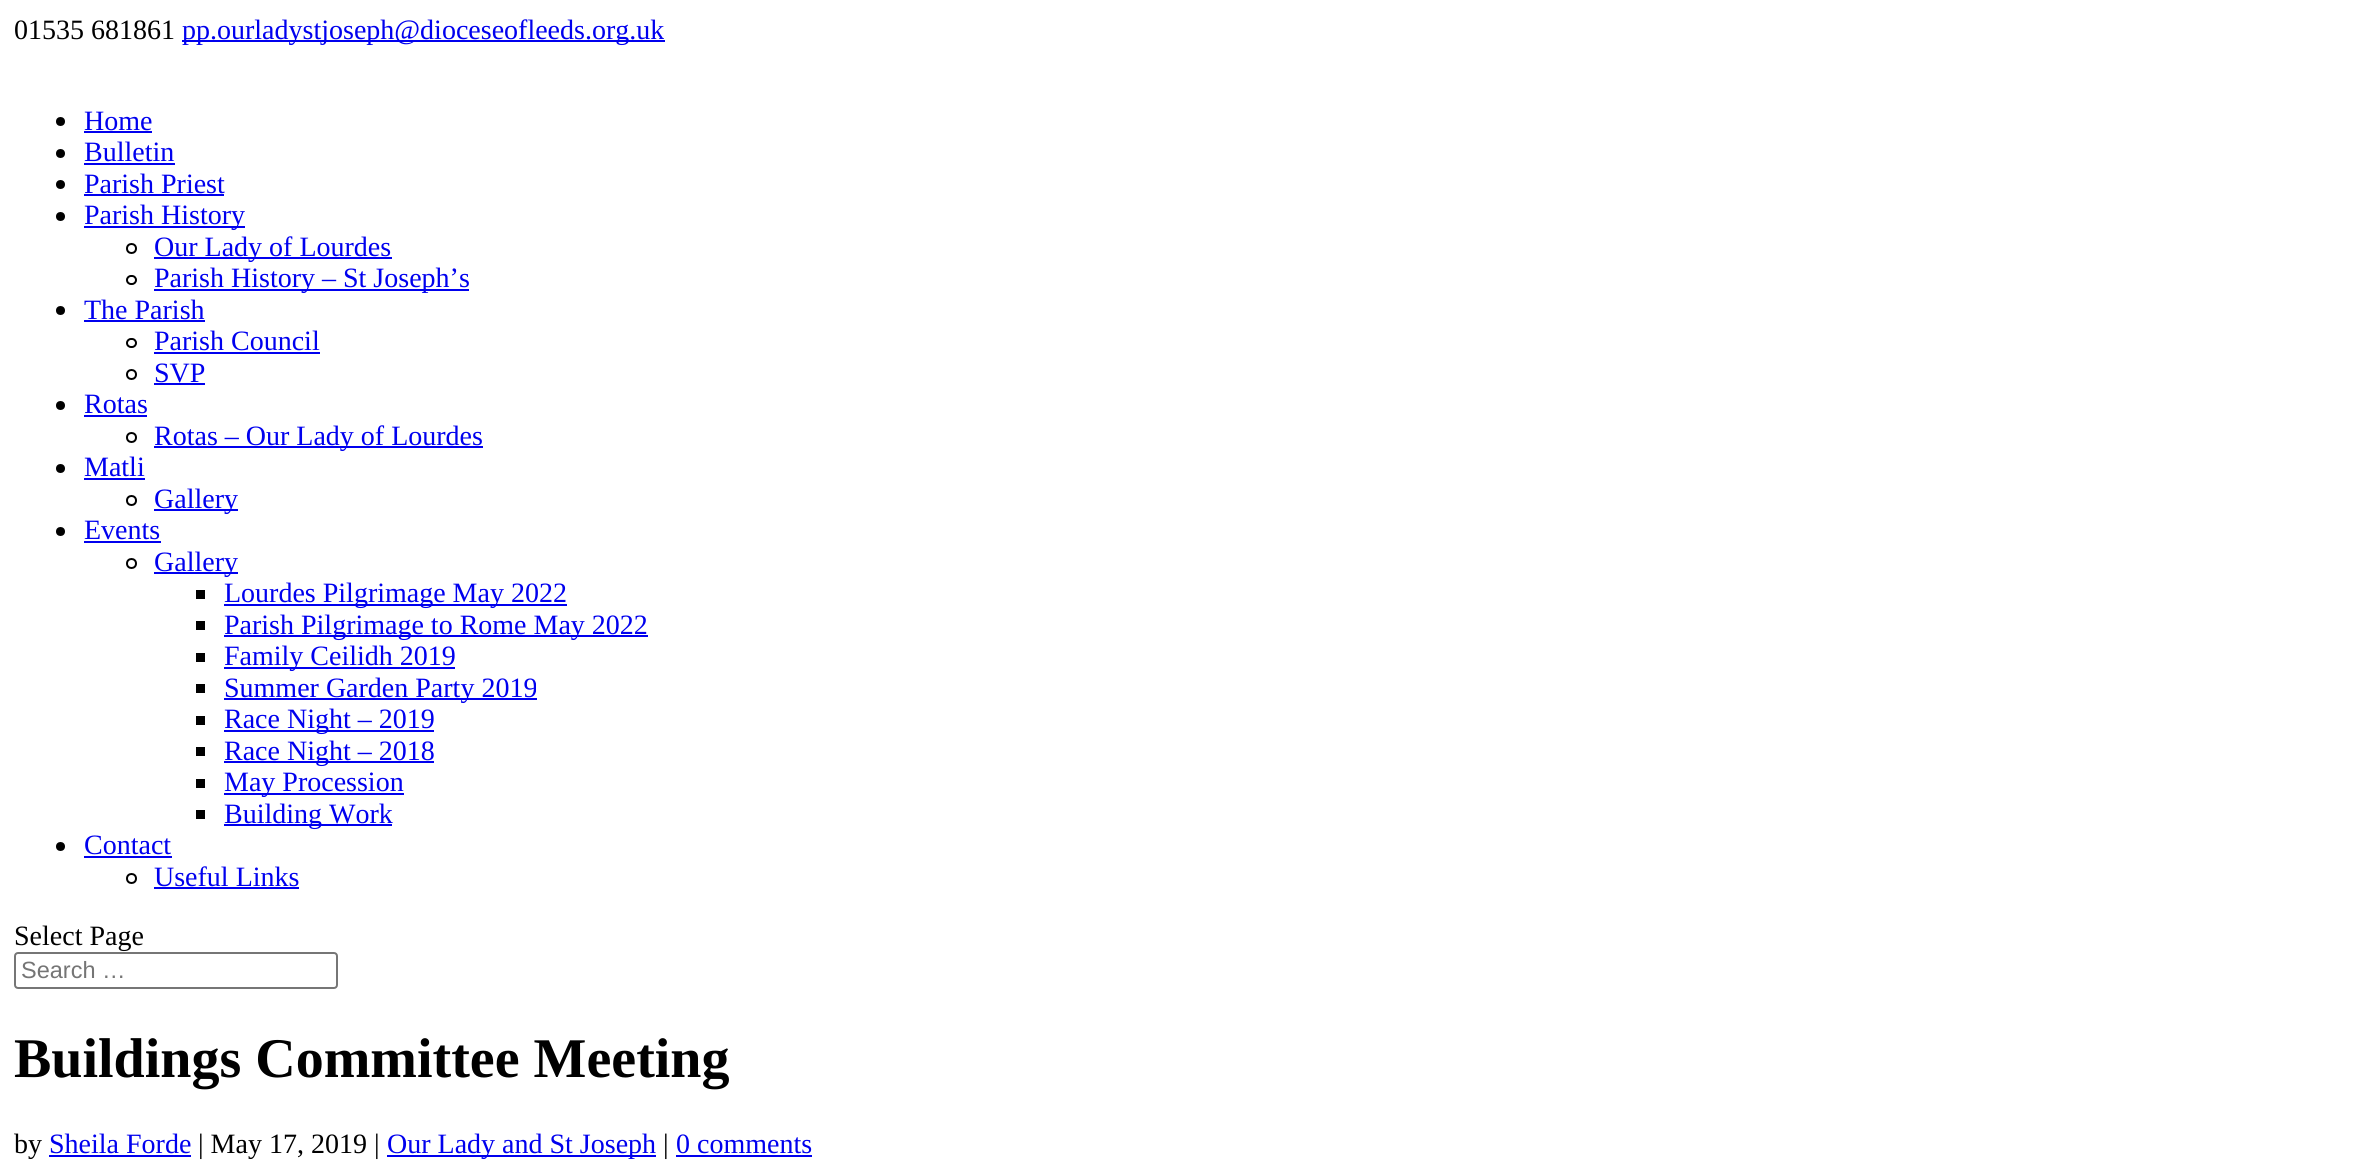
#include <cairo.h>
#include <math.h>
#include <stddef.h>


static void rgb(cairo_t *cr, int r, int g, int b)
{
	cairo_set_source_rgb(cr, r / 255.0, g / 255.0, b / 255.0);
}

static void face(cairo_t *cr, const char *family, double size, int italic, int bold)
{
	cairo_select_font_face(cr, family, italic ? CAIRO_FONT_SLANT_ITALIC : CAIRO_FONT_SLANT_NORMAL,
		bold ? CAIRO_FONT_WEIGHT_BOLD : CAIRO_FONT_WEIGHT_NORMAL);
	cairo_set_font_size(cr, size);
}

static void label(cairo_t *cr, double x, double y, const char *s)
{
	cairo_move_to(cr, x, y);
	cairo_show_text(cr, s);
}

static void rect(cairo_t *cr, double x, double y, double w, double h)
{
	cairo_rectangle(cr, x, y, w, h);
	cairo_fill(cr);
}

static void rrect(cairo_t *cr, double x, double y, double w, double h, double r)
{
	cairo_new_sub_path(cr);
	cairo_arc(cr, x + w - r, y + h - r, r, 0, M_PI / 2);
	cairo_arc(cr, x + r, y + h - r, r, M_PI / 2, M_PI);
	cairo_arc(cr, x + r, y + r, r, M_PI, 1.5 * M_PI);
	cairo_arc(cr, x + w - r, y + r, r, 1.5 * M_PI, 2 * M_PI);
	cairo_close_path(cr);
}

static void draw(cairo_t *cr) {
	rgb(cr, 255, 255, 255);
	cairo_paint(cr);
	face(cr, "Liberation Serif", 28, 0, 0);
	rgb(cr, 0, 0, 0);
	label(cr, 14, 39, "01535 681861");
	rgb(cr, 0, 0, 238);
	rect(cr, 182, 40, 483, 2);
	label(cr, 182, 39, "pp.ourladystjoseph@dioceseofleeds.org.uk");
	rgb(cr, 0, 0, 0);
	cairo_new_path(cr);
	cairo_arc(cr, 60.5, 121.5, 4.5, 0, 2 * M_PI);
	cairo_fill(cr);
	rgb(cr, 0, 0, 238);
	label(cr, 84, 130, "Home");
	rect(cr, 84, 131, 68, 2);
	rgb(cr, 0, 0, 0);
	cairo_new_path(cr);
	cairo_arc(cr, 60.5, 153.5, 4.5, 0, 2 * M_PI);
	cairo_fill(cr);
	rgb(cr, 0, 0, 238);
	label(cr, 84, 161, "Bulletin");
	rect(cr, 84, 163, 91, 2);
	rgb(cr, 0, 0, 0);
	cairo_new_path(cr);
	cairo_arc(cr, 60.5, 184.5, 4.5, 0, 2 * M_PI);
	cairo_fill(cr);
	rgb(cr, 0, 0, 238);
	label(cr, 84, 193, "Parish Priest");
	rect(cr, 84, 194, 140, 2);
	rgb(cr, 0, 0, 0);
	cairo_new_path(cr);
	cairo_arc(cr, 60.5, 216.5, 4.5, 0, 2 * M_PI);
	cairo_fill(cr);
	rgb(cr, 0, 0, 238);
	rect(cr, 84, 226, 161, 2);
	label(cr, 84, 224, "Parish History");
	cairo_new_path(cr);
	cairo_arc(cr, 131.5, 248.5, 4.5, 0, 2 * M_PI);
	rgb(cr, 0, 0, 0);
	cairo_stroke(cr);
	rgb(cr, 0, 0, 238);
	rect(cr, 154, 257, 238, 2);
	label(cr, 154, 256, "Our Lady of Lourdes");
	rrect(cr, 127, 276, 9, 8, 4);
	rgb(cr, 0, 0, 0);
	cairo_stroke(cr);
	rgb(cr, 0, 0, 238);
	rect(cr, 154, 289, 315, 2);
	label(cr, 154, 287, "Parish History – St Joseph’s");
	rgb(cr, 0, 0, 0);
	cairo_new_path(cr);
	cairo_arc(cr, 60.5, 310.5, 4.5, 0, 2 * M_PI);
	cairo_fill(cr);
	rgb(cr, 0, 0, 238);
	label(cr, 84, 319, "The Parish");
	rect(cr, 84, 320, 121, 2);
	rrect(cr, 127, 339, 9, 8, 4);
	rgb(cr, 0, 0, 0);
	cairo_stroke(cr);
	rgb(cr, 0, 0, 238);
	label(cr, 154, 350, "Parish Council");
	rect(cr, 154, 352, 166, 2);
	cairo_new_path(cr);
	cairo_arc(cr, 131.5, 374.5, 4.5, 0, 2 * M_PI);
	rgb(cr, 0, 0, 0);
	cairo_stroke(cr);
	rgb(cr, 0, 0, 238);
	label(cr, 154, 382, "SVP");
	rect(cr, 154, 383, 51, 2);
	rgb(cr, 0, 0, 0);
	cairo_new_path(cr);
	cairo_arc(cr, 60.5, 405.5, 4.5, 0, 2 * M_PI);
	cairo_fill(cr);
	rgb(cr, 0, 0, 238);
	label(cr, 84, 413, "Rotas");
	rect(cr, 84, 415, 63, 2);
	cairo_new_path(cr);
	cairo_arc(cr, 131.5, 437.5, 4.5, 0, 2 * M_PI);
	rgb(cr, 0, 0, 0);
	cairo_stroke(cr);
	rgb(cr, 0, 0, 238);
	rect(cr, 154, 446, 329, 2);
	label(cr, 154, 445, "Rotas – Our Lady of Lourdes");
	rgb(cr, 0, 0, 0);
	cairo_new_path(cr);
	cairo_arc(cr, 60.5, 468.5, 4.5, 0, 2 * M_PI);
	cairo_fill(cr);
	rgb(cr, 0, 0, 238);
	label(cr, 84, 476, "Matli");
	rect(cr, 84, 478, 61, 2);
	cairo_new_path(cr);
	cairo_arc(cr, 131.5, 500.5, 4.5, 0, 2 * M_PI);
	rgb(cr, 0, 0, 0);
	cairo_stroke(cr);
	rgb(cr, 0, 0, 238);
	rect(cr, 154, 509, 84, 2);
	label(cr, 154, 508, "Gallery");
	rgb(cr, 0, 0, 0);
	cairo_new_path(cr);
	cairo_arc(cr, 60.5, 531.5, 4.5, 0, 2 * M_PI);
	cairo_fill(cr);
	rgb(cr, 0, 0, 238);
	label(cr, 84, 539, "Events");
	rect(cr, 84, 541, 77, 2);
	cairo_new_path(cr);
	cairo_arc(cr, 131.5, 563.5, 4.5, 0, 2 * M_PI);
	rgb(cr, 0, 0, 0);
	cairo_stroke(cr);
	rgb(cr, 0, 0, 238);
	rect(cr, 154, 572, 84, 2);
	label(cr, 154, 571, "Gallery");
	rgb(cr, 0, 0, 0);
	rect(cr, 196, 590, 9, 9);
	rgb(cr, 0, 0, 238);
	rect(cr, 224, 604, 343, 2);
	label(cr, 224, 602, "Lourdes Pilgrimage May 2022");
	rgb(cr, 0, 0, 0);
	rect(cr, 196, 621, 9, 9);
	rgb(cr, 0, 0, 238);
	rect(cr, 224, 635, 424, 2);
	label(cr, 224, 634, "Parish Pilgrimage to Rome May 2022");
	rgb(cr, 0, 0, 0);
	rect(cr, 196, 653, 9, 9);
	rgb(cr, 0, 0, 238);
	rect(cr, 224, 667, 231, 2);
	label(cr, 224, 665, "Family Ceilidh 2019");
	rgb(cr, 0, 0, 0);
	rect(cr, 196, 684, 9, 9);
	rgb(cr, 0, 0, 238);
	rect(cr, 224, 698, 313, 2);
	label(cr, 224, 697, "Summer Garden Party 2019");
	rgb(cr, 0, 0, 0);
	rect(cr, 196, 716, 9, 9);
	rgb(cr, 0, 0, 238);
	rect(cr, 224, 730, 210, 2);
	label(cr, 224, 728, "Race Night – 2019");
	rgb(cr, 0, 0, 0);
	rect(cr, 196, 747, 9, 9);
	rgb(cr, 0, 0, 238);
	rect(cr, 224, 761, 210, 2);
	label(cr, 224, 760, "Race Night – 2018");
	rgb(cr, 0, 0, 0);
	rect(cr, 196, 779, 9, 9);
	rgb(cr, 0, 0, 238);
	rect(cr, 224, 793, 180, 2);
	label(cr, 224, 791, "May Procession");
	rgb(cr, 0, 0, 0);
	rect(cr, 196, 810, 9, 9);
	rgb(cr, 0, 0, 238);
	rect(cr, 224, 824, 168, 2);
	label(cr, 224, 823, "Building Work");
	rgb(cr, 0, 0, 0);
	cairo_new_path(cr);
	cairo_arc(cr, 60.5, 846.5, 4.5, 0, 2 * M_PI);
	cairo_fill(cr);
	rgb(cr, 0, 0, 238);
	label(cr, 84, 854, "Contact");
	rect(cr, 84, 856, 88, 2);
	cairo_new_path(cr);
	cairo_arc(cr, 131.5, 878.5, 4.5, 0, 2 * M_PI);
	rgb(cr, 0, 0, 0);
	cairo_stroke(cr);
	rgb(cr, 0, 0, 238);
	label(cr, 154, 886, "Useful Links");
	rect(cr, 154, 887, 145, 2);
	rgb(cr, 0, 0, 0);
	label(cr, 14, 945, "Select Page");
	rrect(cr, 15, 953, 322, 35, 3);
	rgb(cr, 118, 118, 118);
	cairo_stroke(cr);
	face(cr, "Liberation Sans", 23.5, 0, 0);
	rgb(cr, 117, 117, 117);
	label(cr, 21, 978, "Search …");
	face(cr, "Liberation Serif", 56, 0, 1);
	rgb(cr, 0, 0, 0);
	label(cr, 14, 1077, "Buildings Committee Meeting");
	face(cr, "Liberation Serif", 28, 0, 0);
	label(cr, 14, 1153, "by");
	rgb(cr, 0, 0, 238);
	label(cr, 49, 1153, "Sheila Forde");
	rect(cr, 49, 1155, 142, 2);
	rgb(cr, 0, 0, 0);
	label(cr, 198, 1153, "| May 17, 2019 |");
	rgb(cr, 0, 0, 238);
	rect(cr, 387, 1155, 269, 2);
	label(cr, 387, 1153, "Our Lady and St Joseph");
	rgb(cr, 0, 0, 0);
	label(cr, 663, 1153, "|");
	rgb(cr, 0, 0, 238);
	label(cr, 676, 1153, "0 comments");
	rect(cr, 676, 1155, 136, 2);
}

int main(void) {
	cairo_surface_t *surface = cairo_image_surface_create(CAIRO_FORMAT_RGB24, 2355, 1175);
	cairo_t *cr = cairo_create(surface);
	cairo_font_options_t *options = cairo_font_options_create();
	cairo_font_options_set_hint_metrics(options, CAIRO_HINT_METRICS_OFF);
	cairo_font_options_set_hint_style(options, CAIRO_HINT_STYLE_NONE);
	cairo_set_font_options(cr, options);
	cairo_set_miter_limit(cr, 4);
	draw(cr);
	cairo_surface_write_to_png(surface, "render.png");
	cairo_font_options_destroy(options);
	cairo_destroy(cr);
	cairo_surface_destroy(surface);
	return 0;
}
